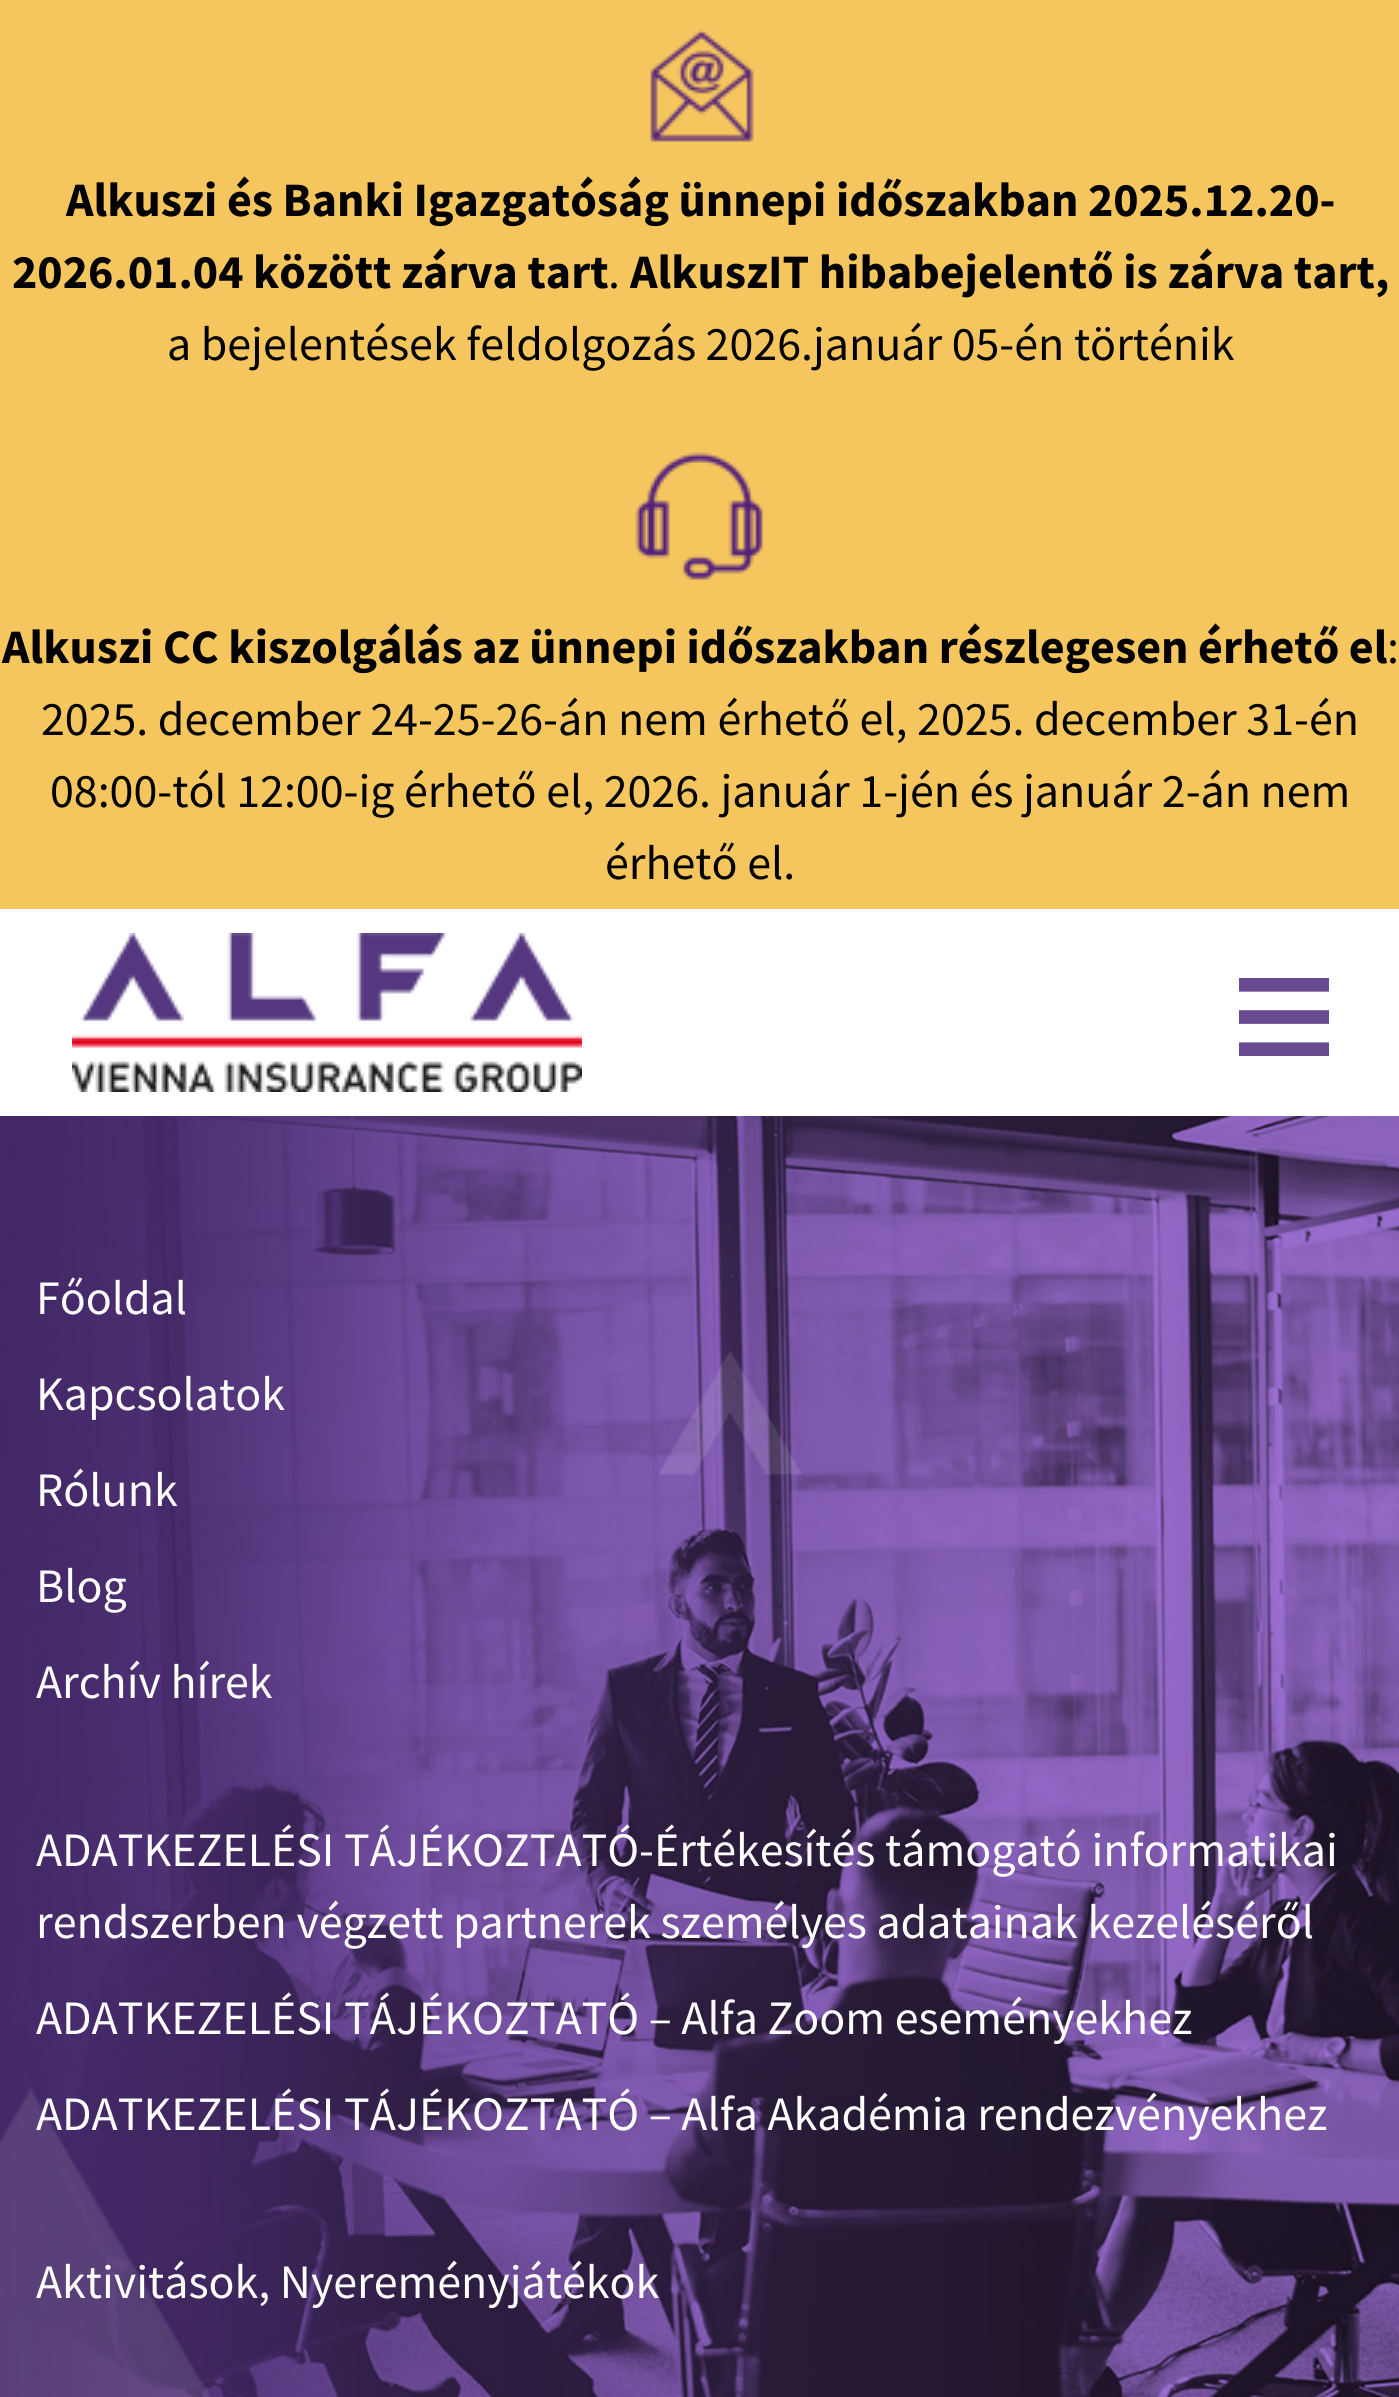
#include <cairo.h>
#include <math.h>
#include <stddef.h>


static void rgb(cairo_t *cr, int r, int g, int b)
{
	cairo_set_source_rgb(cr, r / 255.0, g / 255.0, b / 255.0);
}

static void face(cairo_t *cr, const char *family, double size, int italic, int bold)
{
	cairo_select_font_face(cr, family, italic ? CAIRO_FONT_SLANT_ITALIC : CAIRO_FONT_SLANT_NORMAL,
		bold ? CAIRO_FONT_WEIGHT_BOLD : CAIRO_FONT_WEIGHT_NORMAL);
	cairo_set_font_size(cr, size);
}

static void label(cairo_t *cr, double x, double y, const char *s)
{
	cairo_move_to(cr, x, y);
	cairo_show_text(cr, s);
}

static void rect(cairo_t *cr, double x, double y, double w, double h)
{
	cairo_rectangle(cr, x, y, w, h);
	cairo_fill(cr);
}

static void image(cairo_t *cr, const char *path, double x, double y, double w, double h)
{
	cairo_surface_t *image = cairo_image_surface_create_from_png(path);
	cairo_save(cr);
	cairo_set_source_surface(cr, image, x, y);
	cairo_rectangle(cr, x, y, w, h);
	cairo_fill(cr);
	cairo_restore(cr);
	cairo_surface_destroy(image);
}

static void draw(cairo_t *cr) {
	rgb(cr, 255, 255, 255);
	cairo_paint(cr);
	rgb(cr, 245, 198, 93);
	rect(cr, 0, 0, 1399, 909);
	image(cr, "image0.png", 650, 29, 104, 113);
	face(cr, "Source Sans Pro", 48, 0, 1);
	rgb(cr, 0, 0, 0);
	label(cr, 66, 216, "Alkuszi és Banki Igazgatóság ünnepi időszakban 2025.12.20-");
	label(cr, 12, 288, "2026.01.04 között zárva tart");
	face(cr, "Source Sans Pro", 48, 0, 0);
	label(cr, 608, 288, ".");
	face(cr, "Source Sans Pro", 48, 0, 1);
	label(cr, 630, 288, "AlkuszIT hibabejelentő is zárva tart,");
	face(cr, "Source Sans Pro", 48, 0, 0);
	label(cr, 167, 360, "a bejelentések feldolgozás 2026.január 05-én történik");
	image(cr, "image1.png", 635, 452, 128, 128);
	face(cr, "Source Sans Pro", 48, 0, 1);
	label(cr, 2, 663, "Alkuszi CC kiszolgálás az ünnepi időszakban részlegesen érhető el");
	face(cr, "Source Sans Pro", 48, 0, 0);
	label(cr, 1387, 663, ":");
	label(cr, 41, 735, "2025. december 24-25-26-án nem érhető el, 2025. december 31-én");
	label(cr, 50, 807, "08:00-tól 12:00-ig érhető el, 2026. január 1-jén és január 2-án nem");
	label(cr, 605, 879, "érhető el.");
	image(cr, "image2.png", 72, 933, 510, 159);
	image(cr, "image3.png", 1239, 978, 90, 78);
	image(cr, "image4.png", 0, 1116, 1399, 1281);
	rgb(cr, 255, 255, 255);
	label(cr, 36, 1314, "Főoldal");
	label(cr, 36, 1410, "Kapcsolatok");
	label(cr, 36, 1506, "Rólunk");
	label(cr, 36, 1602, "Blog");
	label(cr, 36, 1698, "Archív hírek");
	label(cr, 36, 1866, "ADATKEZELÉSI TÁJÉKOZTATÓ-Értékesítés támogató informatikai");
	label(cr, 36, 1938, "rendszerben végzett partnerek személyes adatainak kezeléséről");
	label(cr, 36, 2034, "ADATKEZELÉSI TÁJÉKOZTATÓ – Alfa Zoom eseményekhez");
	label(cr, 36, 2130, "ADATKEZELÉSI TÁJÉKOZTATÓ – Alfa Akadémia rendezvényekhez");
	label(cr, 36, 2298, "Aktivitások, Nyereményjátékok");
}

int main(void) {
	cairo_surface_t *surface = cairo_image_surface_create(CAIRO_FORMAT_RGB24, 1399, 2397);
	cairo_t *cr = cairo_create(surface);
	cairo_font_options_t *options = cairo_font_options_create();
	cairo_font_options_set_hint_metrics(options, CAIRO_HINT_METRICS_OFF);
	cairo_font_options_set_hint_style(options, CAIRO_HINT_STYLE_NONE);
	cairo_set_font_options(cr, options);
	cairo_set_miter_limit(cr, 4);
	draw(cr);
	cairo_surface_write_to_png(surface, "render.png");
	cairo_font_options_destroy(options);
	cairo_destroy(cr);
	cairo_surface_destroy(surface);
	return 0;
}
